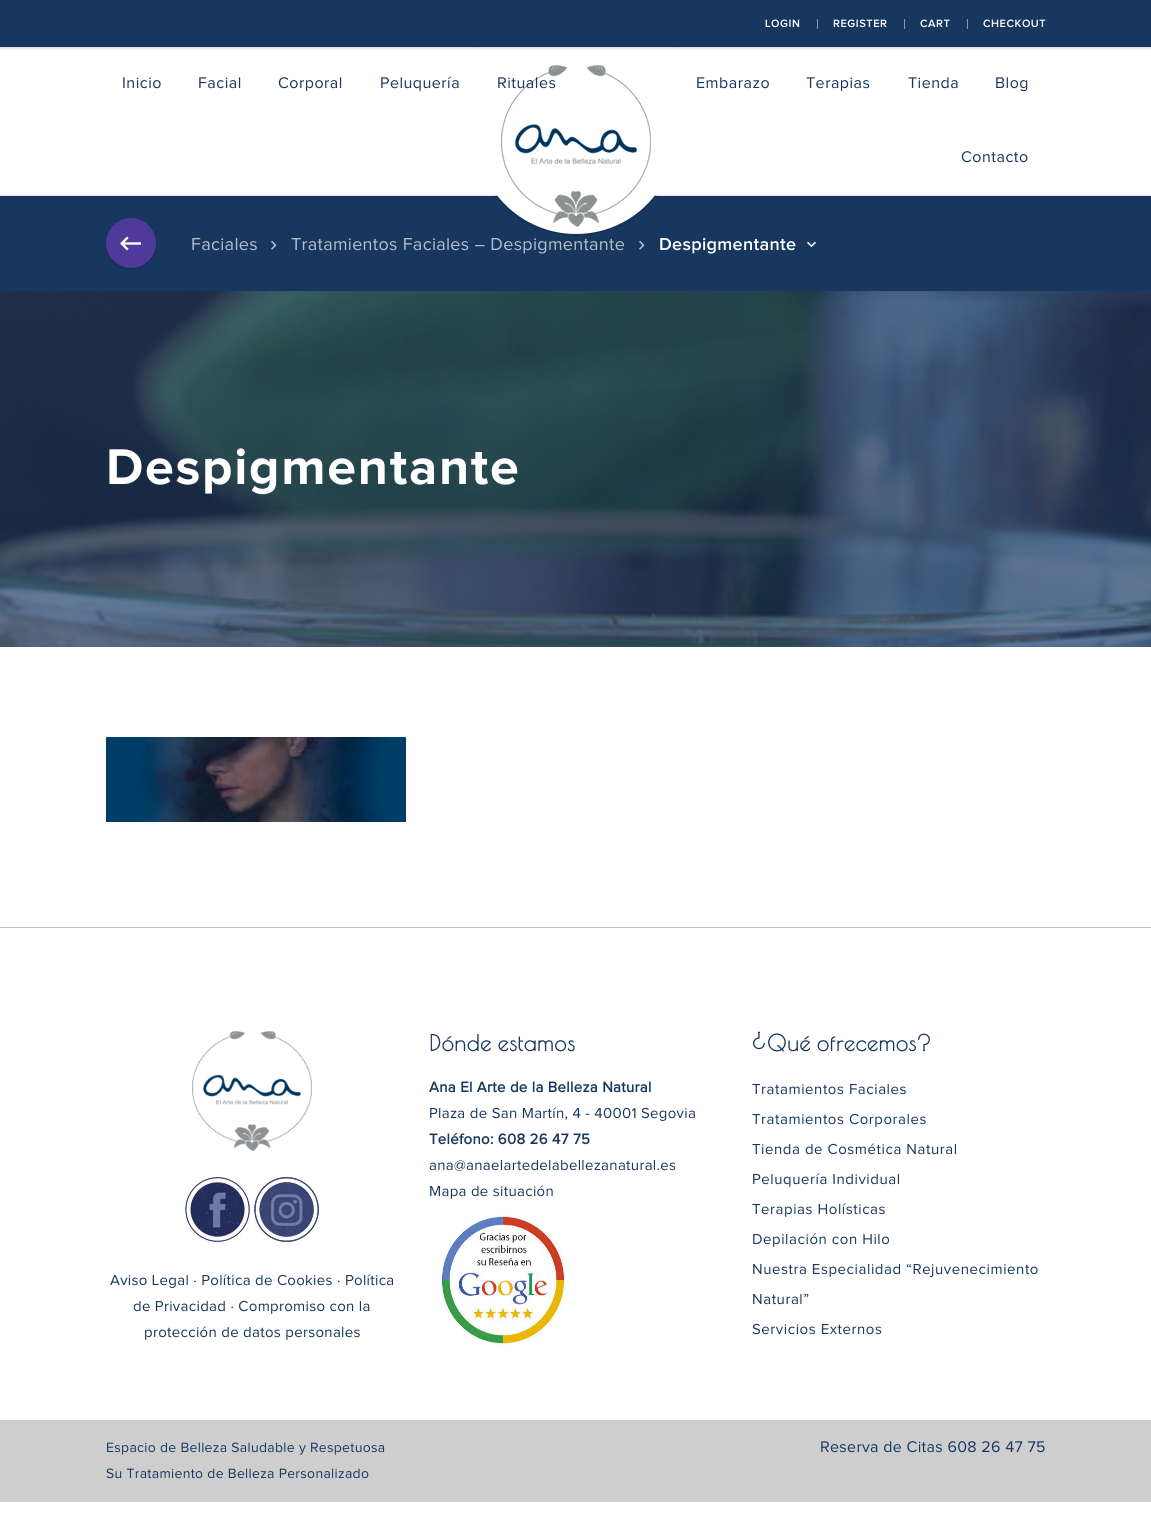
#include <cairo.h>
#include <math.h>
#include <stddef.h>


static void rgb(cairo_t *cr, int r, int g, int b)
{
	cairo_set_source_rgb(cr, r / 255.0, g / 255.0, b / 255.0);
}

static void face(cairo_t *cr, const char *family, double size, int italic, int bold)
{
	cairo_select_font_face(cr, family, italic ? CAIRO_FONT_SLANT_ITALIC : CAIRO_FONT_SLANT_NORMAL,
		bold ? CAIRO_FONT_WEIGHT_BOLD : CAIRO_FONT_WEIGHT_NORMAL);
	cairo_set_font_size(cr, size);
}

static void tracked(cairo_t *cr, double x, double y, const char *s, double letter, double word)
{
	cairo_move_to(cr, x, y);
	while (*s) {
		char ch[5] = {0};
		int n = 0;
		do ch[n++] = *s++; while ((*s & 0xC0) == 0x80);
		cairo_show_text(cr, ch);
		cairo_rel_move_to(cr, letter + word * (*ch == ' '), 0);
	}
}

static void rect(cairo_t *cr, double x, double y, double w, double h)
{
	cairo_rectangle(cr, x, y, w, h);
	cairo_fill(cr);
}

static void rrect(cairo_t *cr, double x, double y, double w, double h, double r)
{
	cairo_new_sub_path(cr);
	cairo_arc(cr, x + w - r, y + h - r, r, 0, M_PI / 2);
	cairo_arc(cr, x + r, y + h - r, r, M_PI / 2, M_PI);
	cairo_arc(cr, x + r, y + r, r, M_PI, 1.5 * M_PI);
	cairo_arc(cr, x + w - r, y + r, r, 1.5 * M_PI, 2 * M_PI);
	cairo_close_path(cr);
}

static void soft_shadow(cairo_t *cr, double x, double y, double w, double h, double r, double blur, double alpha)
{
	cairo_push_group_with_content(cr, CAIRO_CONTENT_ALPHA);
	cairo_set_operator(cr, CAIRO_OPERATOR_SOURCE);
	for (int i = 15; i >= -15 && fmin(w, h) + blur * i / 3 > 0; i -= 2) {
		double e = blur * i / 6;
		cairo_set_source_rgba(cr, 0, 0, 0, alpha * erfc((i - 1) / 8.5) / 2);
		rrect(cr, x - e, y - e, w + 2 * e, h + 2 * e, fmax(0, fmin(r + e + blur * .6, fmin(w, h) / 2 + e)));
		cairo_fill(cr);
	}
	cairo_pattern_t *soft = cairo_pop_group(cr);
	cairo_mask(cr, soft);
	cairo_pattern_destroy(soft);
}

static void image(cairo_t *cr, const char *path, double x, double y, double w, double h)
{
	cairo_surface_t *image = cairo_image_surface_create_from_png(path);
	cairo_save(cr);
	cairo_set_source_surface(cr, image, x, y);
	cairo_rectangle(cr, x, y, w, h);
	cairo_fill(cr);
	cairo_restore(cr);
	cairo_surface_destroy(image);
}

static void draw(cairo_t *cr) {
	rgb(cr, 255, 255, 255);
	cairo_paint(cr);
	rgb(cr, 231, 228, 239);
	rect(cr, 0, 195, 1151, 1);
	rgb(cr, 23, 55, 95);
	rect(cr, 0, 196, 1151, 95);
	image(cr, "image2.png", 639, 240, 6, 10);
	rgb(cr, 0, 0, 0);
	soft_shadow(cr, 476, -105, 200, 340, 100, 1.5, 0.2);
	rgb(cr, 255, 255, 255);
	rrect(cr, 476, -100, 200, 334, 100);
	cairo_fill(cr);
	rect(cr, 474, 47, 204, 148);
	rgb(cr, 0, 0, 0);
	soft_shadow(cr, 0, 1, 1151, 47, 0, 1.5, 0.22);
	rgb(cr, 23, 55, 95);
	rect(cr, 0, 0, 1151, 47);
	face(cr, "Proxima Nova SemiBold", 11, 0, 0);
	rgb(cr, 255, 255, 255);
	tracked(cr, 765, 27, "LOGIN", 0.55, 0);
	rgb(cr, 139, 155, 175);
	rect(cr, 817, 19, 1, 10);
	rgb(cr, 255, 255, 255);
	tracked(cr, 833, 27, "REGISTER", 0.55, 0);
	rgb(cr, 139, 155, 175);
	rect(cr, 904, 19, 1, 10);
	rgb(cr, 255, 255, 255);
	tracked(cr, 920, 27, "CART", 0.55, 0);
	rgb(cr, 139, 155, 175);
	rect(cr, 967, 19, 1, 10);
	rgb(cr, 255, 255, 255);
	tracked(cr, 983, 27, "CHECKOUT", 0.55, 0);
	image(cr, "image0.png", 501, 65, 150, 162);
	face(cr, "Proxima Nova", 16, 0, 0);
	rgb(cr, 23, 55, 95);
	tracked(cr, 122, 88, "Inicio", 0.5, 0);
	tracked(cr, 198, 88, "Facial", 0.5, 0);
	tracked(cr, 278, 88, "Corporal", 0.5, 0);
	tracked(cr, 380, 88, "Peluquería", 0.5, 0);
	tracked(cr, 497, 88, "Rituales", 0.5, 0);
	tracked(cr, 696, 88, "Embarazo", 0.5, 0);
	tracked(cr, 806, 88, "Terapias", 0.5, 0);
	tracked(cr, 908, 88, "Tienda", 0.5, 0);
	tracked(cr, 995, 88, "Blog", 0.5, 0);
	tracked(cr, 961, 162, "Contacto", 0.5, 0);
	rgb(cr, 0, 0, 0);
	soft_shadow(cr, 106, 219, 50, 50, 25, 1, 0.22);
	rgb(cr, 79, 57, 155);
	cairo_arc(cr, 131, 243, 25, 0, 2 * M_PI);
	cairo_fill(cr);
	image(cr, "image1.png", 120, 236, 21, 15);
	face(cr, "Proxima Nova", 18, 0, 0);
	rgb(cr, 181, 191, 204);
	tracked(cr, 191, 250, "Faciales", 0.3, 0);
	image(cr, "image2.png", 271, 240, 6, 10);
	tracked(cr, 291, 250, "Tratamientos Faciales – Despigmentante", 0.3, 0);
	face(cr, "Proxima Nova SemiBold", 18, 0, 0);
	rgb(cr, 255, 255, 255);
	tracked(cr, 659, 250, "Despigmentante", 0.3, 0);
	image(cr, "image3.png", 807, 241, 9, 7);
	image(cr, "image4.png", 0, 291, 1151, 356);
	face(cr, "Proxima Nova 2", 52, 0, 1);
	tracked(cr, 106, 484, "Despigmentante", 1.75, 0);
	image(cr, "image5.png", 106, 737, 300, 85);
	rgb(cr, 189, 189, 189);
	rect(cr, 0, 927, 1151, 1);
	face(cr, "Poiret One", 22, 0, 1);
	rgb(cr, 23, 55, 95);
	tracked(cr, 429, 1051, "Dónde estamos", 0.75, 0);
	face(cr, "Proxima Nova", 15, 0, 1);
	tracked(cr, 429, 1092, "Ana El Arte de la Belleza Natural", 0.3, 0);
	face(cr, "Proxima Nova", 15, 0, 0);
	tracked(cr, 429, 1118, "Plaza de San Martín, 4 - 40001 Segovia", 0.3, 0);
	face(cr, "Proxima Nova", 15, 0, 1);
	tracked(cr, 429, 1144, "Teléfono: 608 26 47 75", 0.3, 0);
	face(cr, "Proxima Nova", 15, 0, 0);
	tracked(cr, 429, 1170, "ana@anaelartedelabellezanatural.es", 0.3, 0);
	tracked(cr, 429, 1196, "Mapa de situación", 0.3, 0);
	image(cr, "image6.png", 441, 1213, 125, 134);
	face(cr, "Poiret One", 22, 0, 1);
	tracked(cr, 752, 1051, "¿Qué ofrecemos?", 0.75, 0);
	face(cr, "Proxima Nova", 15, 0, 0);
	tracked(cr, 752, 1094, "Tratamientos Faciales", 0.55, 0);
	tracked(cr, 752, 1124, "Tratamientos Corporales", 0.55, 0);
	tracked(cr, 752, 1154, "Tienda de Cosmética Natural", 0.55, 0);
	tracked(cr, 752, 1184, "Peluquería Individual", 0.55, 0);
	tracked(cr, 752, 1214, "Terapias Holísticas", 0.55, 0);
	tracked(cr, 752, 1244, "Depilación con Hilo", 0.55, 0);
	tracked(cr, 752, 1274, "Nuestra Especialidad “Rejuvenecimiento", 0.55, 0);
	tracked(cr, 752, 1304, "Natural”", 0.55, 0);
	tracked(cr, 752, 1334, "Servicios Externos", 0.55, 0);
	image(cr, "image7.png", 192, 1031, 120, 120);
	image(cr, "image8.png", 185, 1177, 65, 65);
	image(cr, "image9.png", 254, 1177, 65, 65);
	tracked(cr, 110, 1285, "Aviso Legal · Política de Cookies · Política", 0.3, 0);
	tracked(cr, 133, 1311, "de Privacidad · Compromiso con la", 0.3, 0);
	tracked(cr, 144, 1337, "protección de datos personales", 0.3, 0);
	rgb(cr, 206, 206, 206);
	rect(cr, 0, 1420, 1151, 82);
	face(cr, "Proxima Nova", 14, 0, 0);
	rgb(cr, 23, 55, 95);
	tracked(cr, 106, 1452, "Espacio de Belleza Saludable y Respetuosa", 0.3, 0);
	tracked(cr, 106, 1478, "Su Tratamiento de Belleza Personalizado", 0.3, 0);
	face(cr, "Proxima Nova", 16, 0, 0);
	tracked(cr, 820, 1452, "Reserva de Citas 608 26 47 75", 0.3, 0);
}

int main(void) {
	cairo_surface_t *surface = cairo_image_surface_create(CAIRO_FORMAT_RGB24, 1151, 1525);
	cairo_t *cr = cairo_create(surface);
	cairo_font_options_t *options = cairo_font_options_create();
	cairo_font_options_set_hint_metrics(options, CAIRO_HINT_METRICS_OFF);
	cairo_font_options_set_hint_style(options, CAIRO_HINT_STYLE_NONE);
	cairo_set_font_options(cr, options);
	cairo_set_miter_limit(cr, 4);
	draw(cr);
	cairo_surface_write_to_png(surface, "render.png");
	cairo_font_options_destroy(options);
	cairo_destroy(cr);
	cairo_surface_destroy(surface);
	return 0;
}
